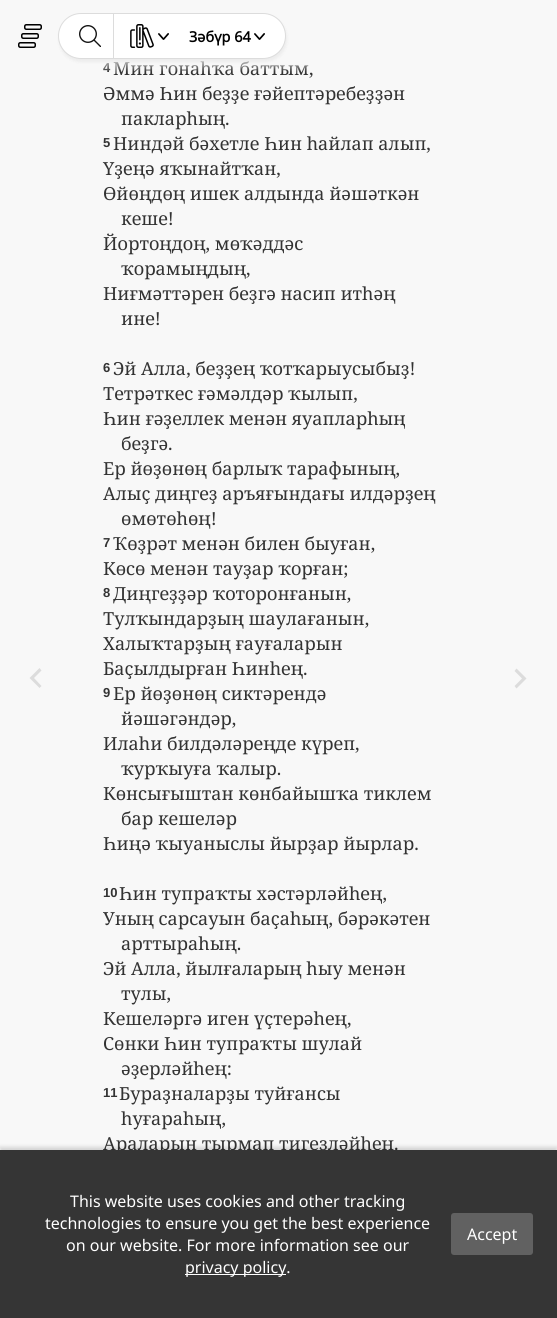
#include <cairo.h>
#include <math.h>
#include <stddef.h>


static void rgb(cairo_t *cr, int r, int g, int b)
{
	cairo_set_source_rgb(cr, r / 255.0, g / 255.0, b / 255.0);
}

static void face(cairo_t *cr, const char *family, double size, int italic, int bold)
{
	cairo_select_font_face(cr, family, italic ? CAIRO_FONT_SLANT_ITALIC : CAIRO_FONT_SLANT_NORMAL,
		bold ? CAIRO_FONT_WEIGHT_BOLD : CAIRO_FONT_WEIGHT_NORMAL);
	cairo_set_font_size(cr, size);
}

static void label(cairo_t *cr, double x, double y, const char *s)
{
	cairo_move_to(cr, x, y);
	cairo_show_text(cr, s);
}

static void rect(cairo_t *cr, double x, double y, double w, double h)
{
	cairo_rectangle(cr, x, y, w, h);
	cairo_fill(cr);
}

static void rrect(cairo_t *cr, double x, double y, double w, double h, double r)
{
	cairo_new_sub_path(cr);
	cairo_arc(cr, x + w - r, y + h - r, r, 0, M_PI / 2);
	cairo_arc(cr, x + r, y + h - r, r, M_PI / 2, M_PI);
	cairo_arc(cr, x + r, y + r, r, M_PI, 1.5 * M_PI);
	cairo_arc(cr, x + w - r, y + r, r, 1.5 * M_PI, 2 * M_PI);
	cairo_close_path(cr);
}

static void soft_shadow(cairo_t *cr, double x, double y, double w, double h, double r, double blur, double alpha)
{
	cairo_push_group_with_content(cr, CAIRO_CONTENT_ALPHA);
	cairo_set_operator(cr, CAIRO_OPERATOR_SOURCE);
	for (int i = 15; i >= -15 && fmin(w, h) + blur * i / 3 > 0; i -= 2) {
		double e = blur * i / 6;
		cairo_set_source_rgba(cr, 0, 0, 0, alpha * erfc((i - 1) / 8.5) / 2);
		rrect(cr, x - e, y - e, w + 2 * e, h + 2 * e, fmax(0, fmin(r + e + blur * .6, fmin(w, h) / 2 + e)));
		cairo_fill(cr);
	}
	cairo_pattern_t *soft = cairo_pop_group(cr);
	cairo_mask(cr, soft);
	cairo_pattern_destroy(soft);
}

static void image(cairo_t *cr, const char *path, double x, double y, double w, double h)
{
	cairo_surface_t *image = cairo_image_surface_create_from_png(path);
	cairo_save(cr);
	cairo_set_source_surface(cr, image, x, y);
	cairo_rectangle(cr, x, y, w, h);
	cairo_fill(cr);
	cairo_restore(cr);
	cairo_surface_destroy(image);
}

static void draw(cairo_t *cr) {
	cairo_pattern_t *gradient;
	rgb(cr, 248, 248, 248);
	cairo_paint(cr);
	face(cr, "Liberation Sans", 13, 0, 1);
	rgb(cr, 51, 51, 51);
	label(cr, 103, 72, "4");
	face(cr, "Noto Serif", 18, 0, 0);
	label(cr, 113, 75, "Мин гонаһҡа баттым,");
	gradient = cairo_pattern_create_linear(279, 0, 279, 72);
	cairo_pattern_add_color_stop_rgba(gradient, 0.78, 0.973, 0.973, 0.973, 1);
	cairo_pattern_add_color_stop_rgba(gradient, 1, 0.973, 0.973, 0.973, 0);
	cairo_set_source(cr, gradient);
	cairo_pattern_destroy(gradient);
	rect(cr, 103, 61, 205, 11);
	image(cr, "image0.png", 18, 24, 24, 24);
	rgb(cr, 0, 0, 0);
	soft_shadow(cr, 59, 16, 228, 46, 23, 1.5, 0.05);
	rgb(cr, 255, 255, 255);
	rrect(cr, 58.5, 13.5, 227, 45, 22.5);
	cairo_fill_preserve(cr);
	rgb(cr, 220, 220, 220);
	cairo_set_line_width(cr, 1);
	cairo_stroke(cr);
	rect(cr, 113, 14, 1, 44);
	image(cr, "image1.png", 79, 25, 22, 22);
	image(cr, "image2.png", 130, 24, 24, 24);
	image(cr, "image3.png", 158, 33, 11, 7);
	face(cr, "Noto Sans", 14.5, 0, 1);
	rgb(cr, 0, 0, 0);
	label(cr, 189, 42, "Зәбүр 64");
	image(cr, "image3.png", 254, 33, 11, 7);
	rgb(cr, 220, 220, 220);
	cairo_new_path(cr);
	cairo_move_to(cr, 41.5, 686);
	cairo_line_to(cr, 34, 678);
	cairo_line_to(cr, 41.5, 670.5);
	cairo_line_to(cr, 39.5, 668);
	cairo_line_to(cr, 29.5, 678);
	cairo_line_to(cr, 39.5, 688);
	cairo_close_path(cr);
	cairo_fill(cr);
	face(cr, "Noto Serif", 18, 0, 0);
	rgb(cr, 51, 51, 51);
	label(cr, 103, 100, "Әммә Һин беҙҙе ғәйептәребеҙҙән");
	label(cr, 121, 125, "пакларһың.");
	face(cr, "Liberation Sans", 13, 0, 1);
	label(cr, 103, 147, "5");
	face(cr, "Noto Serif", 18, 0, 0);
	label(cr, 113, 150, "Ниндәй бәхетле Һин һайлап алып,");
	label(cr, 103, 175, "Үҙеңә яҡынайтҡан,");
	label(cr, 103, 200, "Өйөңдөң ишек алдында йәшәткән");
	label(cr, 121, 225, "кеше!");
	label(cr, 103, 250, "Йортоңдоң, мөҡәддәс");
	label(cr, 121, 275, "ҡорамыңдың,");
	label(cr, 103, 300, "Ниғмәттәрен беҙгә насип итһәң");
	label(cr, 121, 325, "ине!");
	face(cr, "Liberation Sans", 13, 0, 1);
	label(cr, 103, 372, "6");
	face(cr, "Noto Serif", 18, 0, 0);
	label(cr, 113, 375, "Эй Алла, беҙҙең ҡотҡарыусыбыҙ!");
	label(cr, 103, 400, "Тетрәткес ғәмәлдәр ҡылып,");
	label(cr, 103, 425, "Һин ғәҙеллек менән яуапларһың");
	label(cr, 121, 450, "беҙгә.");
	label(cr, 103, 475, "Ер йөҙөнөң барлыҡ тарафының,");
	label(cr, 103, 500, "Алыҫ диңгеҙ аръяғындағы илдәрҙең");
	label(cr, 121, 525, "өмөтөһөң!");
	face(cr, "Liberation Sans", 13, 0, 1);
	label(cr, 103, 547, "7");
	face(cr, "Noto Serif", 18, 0, 0);
	label(cr, 113, 550, "Ҡөҙрәт менән билен быуған,");
	label(cr, 103, 575, "Көсө менән тауҙар ҡорған;");
	face(cr, "Liberation Sans", 13, 0, 1);
	label(cr, 103, 597, "8");
	face(cr, "Noto Serif", 18, 0, 0);
	label(cr, 113, 600, "Диңгеҙҙәр ҡоторонғанын,");
	label(cr, 103, 625, "Тулҡындарҙың шаулағанын,");
	label(cr, 103, 650, "Халыҡтарҙың ғауғаларын");
	label(cr, 103, 675, "Баҫылдырған Һинһең.");
	face(cr, "Liberation Sans", 13, 0, 1);
	label(cr, 103, 697, "9");
	face(cr, "Noto Serif", 18, 0, 0);
	label(cr, 113, 700, "Ер йөҙөнөң сиктәрендә");
	label(cr, 121, 725, "йәшәгәндәр,");
	label(cr, 103, 750, "Илаһи билдәләреңде күреп,");
	label(cr, 121, 775, "ҡурҡыуға ҡалыр.");
	label(cr, 103, 800, "Көнсығыштан көнбайышҡа тиклем");
	label(cr, 121, 825, "бар кешеләр");
	label(cr, 103, 850, "Һиңә ҡыуаныслы йырҙар йырлар.");
	face(cr, "Liberation Sans", 13, 0, 1);
	label(cr, 103, 897, "10");
	face(cr, "Noto Serif", 18, 0, 0);
	label(cr, 119, 900, "Һин тупраҡты хәстәрләйһең,");
	label(cr, 103, 925, "Уның сарсауын баҫаһың, бәрәкәтен");
	label(cr, 121, 950, "арттыраһың.");
	label(cr, 103, 975, "Эй Алла, йылғаларың һыу менән");
	label(cr, 121, 1000, "тулы,");
	label(cr, 103, 1025, "Кешеләргә иген үҫтерәһең,");
	label(cr, 103, 1050, "Сөнки Һин тупраҡты шулай");
	label(cr, 121, 1075, "әҙерләйһең:");
	face(cr, "Liberation Sans", 13, 0, 1);
	label(cr, 103, 1097, "11");
	face(cr, "Noto Serif", 18, 0, 0);
	label(cr, 119, 1100, "Бураҙналарҙы туйғансы");
	label(cr, 121, 1125, "һуғараһың,");
	label(cr, 103, 1150, "Араларын тырмап тигеҙләйһең.");
	rgb(cr, 220, 220, 220);
	cairo_new_path(cr);
	cairo_move_to(cr, 514.5, 686);
	cairo_line_to(cr, 522, 678.5);
	cairo_line_to(cr, 514.5, 671);
	cairo_line_to(cr, 516.5, 668.5);
	cairo_line_to(cr, 526.5, 678.5);
	cairo_line_to(cr, 516.5, 688.5);
	cairo_close_path(cr);
	cairo_fill(cr);
	rgb(cr, 0, 0, 0);
	soft_shadow(cr, 0, 1147, 557, 168, 0, 2, 0.15);
	rgb(cr, 53, 53, 53);
	rect(cr, 0, 1150, 557, 168);
	face(cr, "Noto Sans", 16, 0, 0);
	rgb(cr, 255, 255, 255);
	label(cr, 70, 1207, "This website uses cookies and other tracking");
	label(cr, 45, 1229, "technologies to ensure you get the best experience");
	label(cr, 66, 1251, "on our website. For more information see our");
	rect(cr, 185, 1274, 101, 1);
	label(cr, 185, 1273, "privacy policy.");
	rgb(cr, 97, 97, 97);
	rrect(cr, 451, 1213, 82, 42, 3);
	cairo_fill(cr);
	rgb(cr, 255, 255, 255);
	label(cr, 467, 1240, "Accept");
}

int main(void) {
	cairo_surface_t *surface = cairo_image_surface_create(CAIRO_FORMAT_RGB24, 557, 1318);
	cairo_t *cr = cairo_create(surface);
	cairo_font_options_t *options = cairo_font_options_create();
	cairo_font_options_set_hint_metrics(options, CAIRO_HINT_METRICS_OFF);
	cairo_font_options_set_hint_style(options, CAIRO_HINT_STYLE_NONE);
	cairo_set_font_options(cr, options);
	cairo_set_miter_limit(cr, 4);
	draw(cr);
	cairo_surface_write_to_png(surface, "render.png");
	cairo_font_options_destroy(options);
	cairo_destroy(cr);
	cairo_surface_destroy(surface);
	return 0;
}
